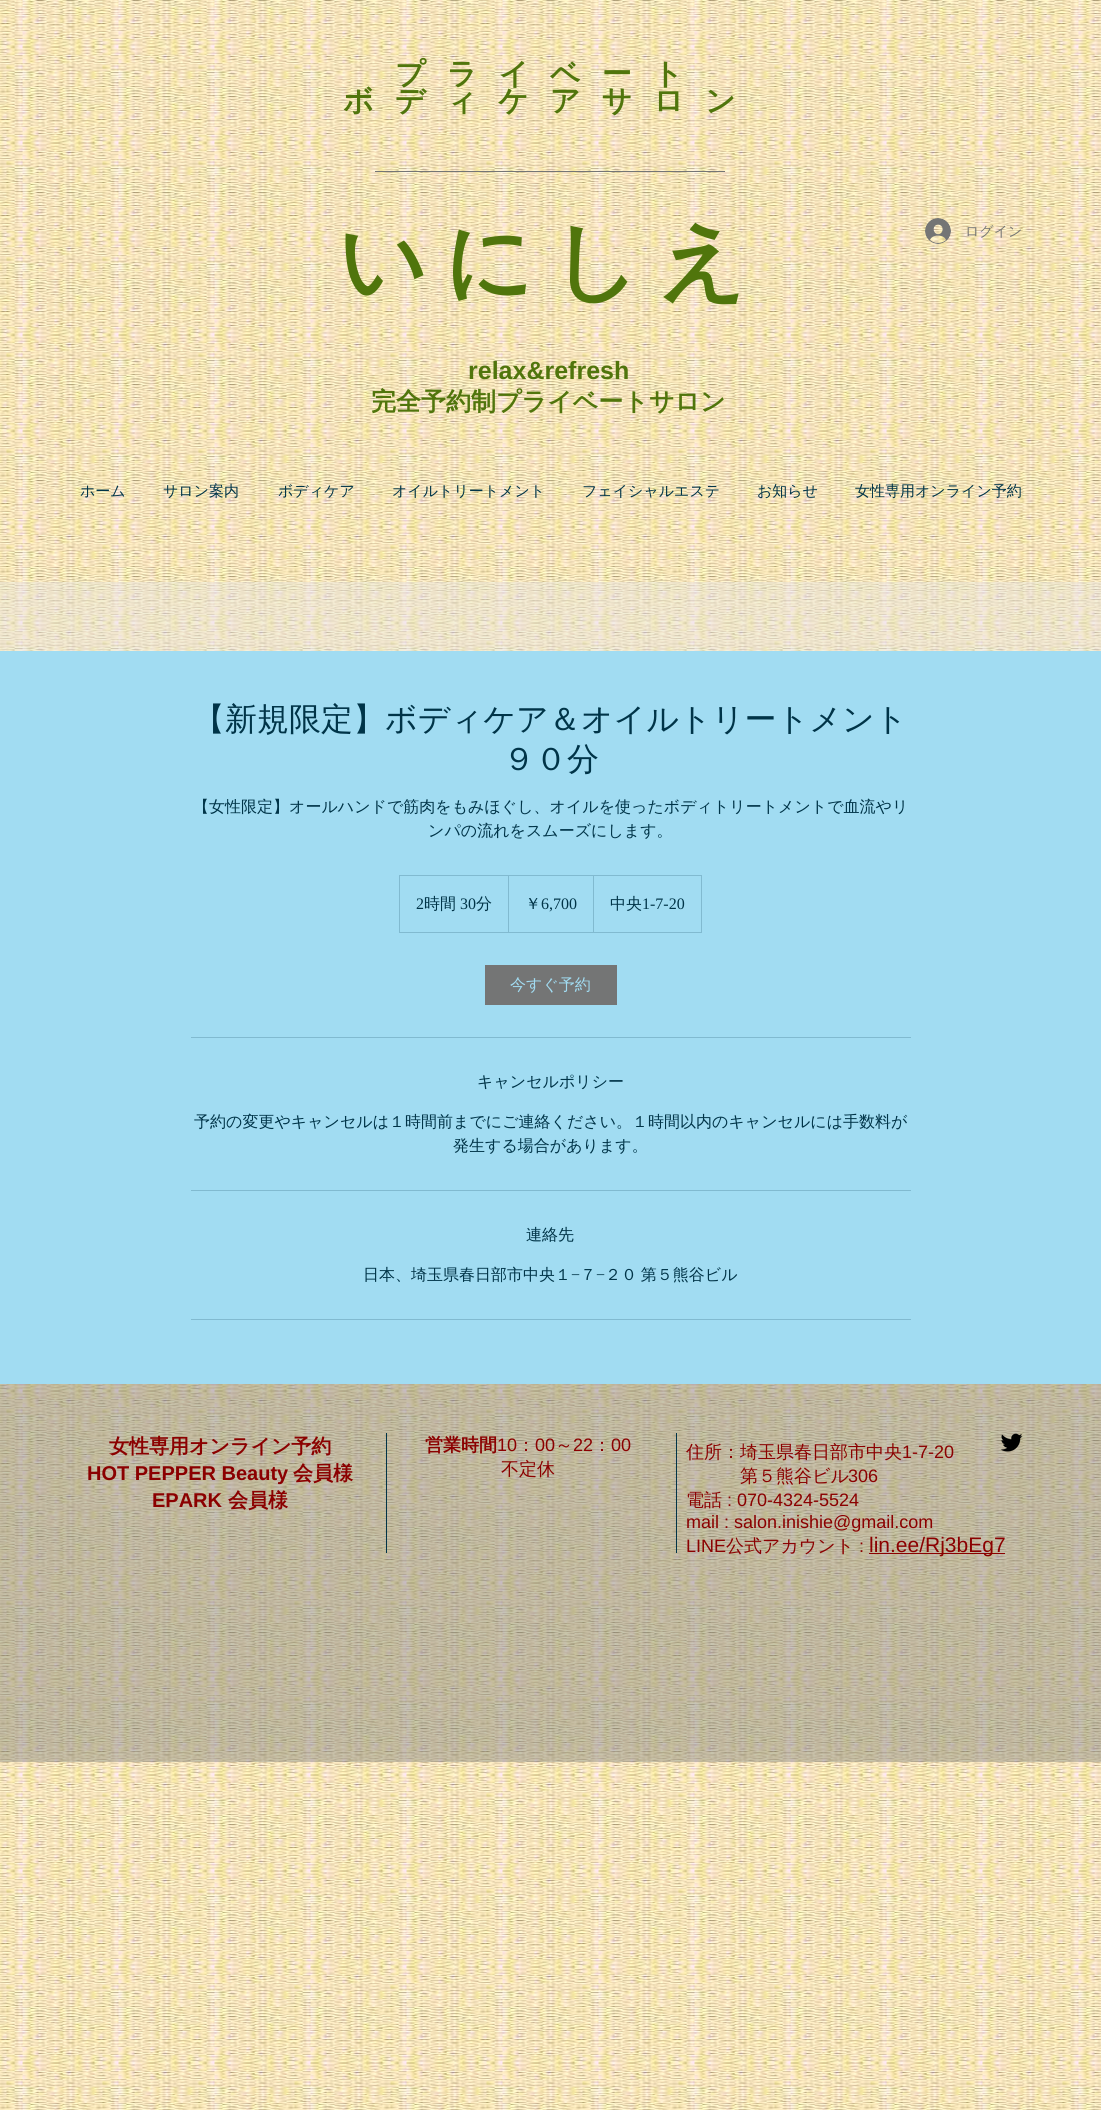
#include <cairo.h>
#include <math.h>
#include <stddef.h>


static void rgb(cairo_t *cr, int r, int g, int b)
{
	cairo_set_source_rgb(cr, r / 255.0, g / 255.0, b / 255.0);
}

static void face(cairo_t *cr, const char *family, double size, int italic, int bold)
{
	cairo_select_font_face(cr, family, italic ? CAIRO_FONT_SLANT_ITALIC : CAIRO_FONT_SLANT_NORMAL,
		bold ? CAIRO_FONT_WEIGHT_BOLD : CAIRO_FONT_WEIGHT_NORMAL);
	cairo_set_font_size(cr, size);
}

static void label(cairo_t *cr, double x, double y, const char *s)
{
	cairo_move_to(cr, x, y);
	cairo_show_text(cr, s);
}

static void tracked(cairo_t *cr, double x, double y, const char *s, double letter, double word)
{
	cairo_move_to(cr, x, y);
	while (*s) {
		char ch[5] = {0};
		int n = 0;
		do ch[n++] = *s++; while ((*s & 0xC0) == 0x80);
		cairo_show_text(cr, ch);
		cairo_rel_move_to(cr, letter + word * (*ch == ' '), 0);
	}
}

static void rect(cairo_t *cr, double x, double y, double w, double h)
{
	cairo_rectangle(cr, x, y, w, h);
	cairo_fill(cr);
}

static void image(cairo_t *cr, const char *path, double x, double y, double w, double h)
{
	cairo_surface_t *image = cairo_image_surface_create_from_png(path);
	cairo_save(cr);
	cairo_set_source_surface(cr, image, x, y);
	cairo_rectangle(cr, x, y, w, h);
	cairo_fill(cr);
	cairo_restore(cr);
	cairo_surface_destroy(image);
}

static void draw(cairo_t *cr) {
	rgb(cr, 255, 255, 255);
	cairo_paint(cr);
	image(cr, "image0.png", 0, 0, 1101, 2110);
	face(cr, "WenQuanYi Zen Hei", 30, 0, 1);
	rgb(cr, 80, 117, 12);
	tracked(cr, 395, 84, "プライベート", 21, 0);
	tracked(cr, 343, 111, "ボディケアサロン", 21, 0);
	rgb(cr, 116, 117, 117);
	rect(cr, 375, 171, 350, 1);
	face(cr, "WenQuanYi Zen Hei", 87, 0, 1);
	rgb(cr, 80, 117, 12);
	tracked(cr, 338, 291, "いにしえ", 17.5, 0);
	image(cr, "image1.png", 925, 218, 26, 26);
	face(cr, "WenQuanYi Zen Hei Medium", 14, 0, 0);
	rgb(cr, 116, 117, 117);
	label(cr, 965, 236, "ログイン");
	face(cr, "Liberation Sans", 25, 0, 1);
	rgb(cr, 80, 117, 12);
	label(cr, 468, 379, "relax&refresh");
	face(cr, "WenQuanYi Zen Hei", 25, 0, 1);
	label(cr, 371, 410, "完全予約制プライベートサロン");
	face(cr, "WenQuanYi Zen Hei Medium", 15, 0, 0);
	rgb(cr, 0, 52, 72);
	label(cr, 80, 496, "ホーム");
	label(cr, 163, 496, "サロン案内");
	label(cr, 278, 496, "ボディケア");
	label(cr, 392, 496, "オイルトリートメント");
	label(cr, 582, 496, "フェイシャルエステ");
	label(cr, 757, 496, "お知らせ");
	label(cr, 855, 496, "女性専用オンライン予約");
	cairo_set_source_rgba(cr, 0.89, 0.89, 0.89, 0.4);
	rect(cr, 0, 582, 1101, 69);
	rgb(cr, 161, 220, 242);
	rect(cr, 0, 651, 1101, 733);
	face(cr, "WenQuanYi Zen Hei Medium", 32, 0, 0);
	rgb(cr, 0, 52, 72);
	label(cr, 193, 730, "【新規限定】ボディケア＆オイルトリートメント");
	label(cr, 503, 770, "９０分");
	face(cr, "WenQuanYi Zen Hei Medium", 16, 0, 0);
	label(cr, 193, 812, "【女性限定】オールハンドで筋肉をもみほぐし、オイルを使ったボディトリートメントで血流やリ");
	label(cr, 428, 836, "ンパの流れをスムーズにします。");
	cairo_rectangle(cr, 399.5, 875.5, 302, 57);
	rgb(cr, 129, 186, 208);
	cairo_set_line_width(cr, 1);
	cairo_stroke(cr);
	face(cr, "Liberation Serif", 16, 0, 0);
	rgb(cr, 0, 52, 72);
	label(cr, 416, 909, "2");
	face(cr, "WenQuanYi Zen Hei Medium", 16, 0, 0);
	label(cr, 424, 909, "時間");
	face(cr, "Liberation Serif", 16, 0, 0);
	label(cr, 460, 909, "30");
	face(cr, "WenQuanYi Zen Hei Medium", 16, 0, 0);
	label(cr, 476, 909, "分");
	rgb(cr, 129, 186, 208);
	cairo_new_path(cr);
	cairo_move_to(cr, 508, 932);
	cairo_line_to(cr, 508, 875);
	cairo_line_to(cr, 509, 876);
	cairo_line_to(cr, 509, 932);
	cairo_close_path(cr);
	cairo_fill(cr);
	rgb(cr, 0, 52, 72);
	label(cr, 525, 909, "￥");
	face(cr, "Liberation Serif", 16, 0, 0);
	label(cr, 541, 909, "6,700");
	rgb(cr, 129, 186, 208);
	cairo_new_path(cr);
	cairo_move_to(cr, 593, 932);
	cairo_line_to(cr, 593, 875);
	cairo_line_to(cr, 594, 876);
	cairo_line_to(cr, 594, 932);
	cairo_close_path(cr);
	cairo_fill(cr);
	face(cr, "WenQuanYi Zen Hei Medium", 16, 0, 0);
	rgb(cr, 0, 52, 72);
	label(cr, 610, 909, "中央");
	face(cr, "Liberation Serif", 16, 0, 0);
	label(cr, 642, 909, "1-7-20");
	rgb(cr, 116, 117, 117);
	rect(cr, 485, 965, 132, 40);
	face(cr, "WenQuanYi Zen Hei Medium", 16, 0, 0);
	rgb(cr, 161, 220, 242);
	label(cr, 510, 990, "今すぐ予約");
	rgb(cr, 129, 186, 208);
	rect(cr, 191, 1037, 720, 1);
	rgb(cr, 0, 52, 72);
	label(cr, 477, 1087, "キャンセルポリシー");
	label(cr, 194, 1127, "予約の変更やキャンセルは１時間前までにご連絡ください。１時間以内のキャンセルには手数料が");
	label(cr, 453, 1151, "発生する場合があります。");
	rgb(cr, 129, 186, 208);
	rect(cr, 191, 1190, 720, 1);
	rgb(cr, 0, 52, 72);
	label(cr, 526, 1240, "連絡先");
	label(cr, 363, 1280, "日本、埼玉県春日部市中央１");
	face(cr, "Liberation Serif", 16, 0, 0);
	label(cr, 571, 1280, "−");
	face(cr, "WenQuanYi Zen Hei Medium", 16, 0, 0);
	label(cr, 580, 1280, "７");
	face(cr, "Liberation Serif", 16, 0, 0);
	label(cr, 596, 1280, "−");
	face(cr, "WenQuanYi Zen Hei Medium", 16, 0, 0);
	tracked(cr, 605, 1280, "２０ 第５熊谷ビル", 0, -1);
	rgb(cr, 129, 186, 208);
	rect(cr, 191, 1319, 720, 1);
	cairo_set_source_rgba(cr, 0.455, 0.459, 0.459, 0.4);
	rect(cr, 0, 1384, 1101, 378);
	face(cr, "WenQuanYi Zen Hei", 20, 0, 1);
	rgb(cr, 139, 0, 0);
	label(cr, 109, 1453, "女性専用オンライン予約");
	face(cr, "Liberation Sans", 20, 0, 1);
	label(cr, 87, 1480, "HOT PEPPER Beauty");
	face(cr, "WenQuanYi Zen Hei", 20, 0, 1);
	label(cr, 293, 1480, "会員様");
	face(cr, "Liberation Sans", 20, 0, 1);
	label(cr, 152, 1507, "EPARK");
	face(cr, "WenQuanYi Zen Hei", 20, 0, 1);
	label(cr, 228, 1507, "会員様");
	rgb(cr, 0, 52, 72);
	rect(cr, 386, 1433, 1, 120);
	face(cr, "WenQuanYi Zen Hei", 18, 0, 1);
	rgb(cr, 139, 0, 0);
	label(cr, 425, 1451, "営業時間");
	face(cr, "Liberation Sans", 18, 0, 0);
	label(cr, 497, 1451, "10");
	face(cr, "WenQuanYi Zen Hei Medium", 18, 0, 0);
	label(cr, 517, 1451, "：");
	face(cr, "Liberation Sans", 18, 0, 0);
	label(cr, 535, 1451, "00");
	face(cr, "WenQuanYi Zen Hei Medium", 18, 0, 0);
	label(cr, 555, 1451, "～");
	face(cr, "Liberation Sans", 18, 0, 0);
	label(cr, 573, 1451, "22");
	face(cr, "WenQuanYi Zen Hei Medium", 18, 0, 0);
	label(cr, 593, 1451, "：");
	face(cr, "Liberation Sans", 18, 0, 0);
	label(cr, 611, 1451, "00");
	face(cr, "WenQuanYi Zen Hei Medium", 18, 0, 0);
	label(cr, 501, 1475, "不定休");
	rgb(cr, 0, 52, 72);
	rect(cr, 676, 1433, 1, 120);
	rgb(cr, 139, 0, 0);
	label(cr, 686, 1458, "住所：埼玉県春日部市中央");
	face(cr, "Liberation Sans", 18, 0, 0);
	label(cr, 902, 1458, "1-7-20");
	face(cr, "WenQuanYi Zen Hei Medium", 18, 0, 0);
	label(cr, 740, 1482, "第５熊谷ビル");
	face(cr, "Liberation Sans", 18, 0, 0);
	label(cr, 848, 1482, "306");
	face(cr, "WenQuanYi Zen Hei Medium", 18, 0, 0);
	label(cr, 686, 1506, "電話");
	face(cr, "Liberation Sans", 18, 0, 0);
	label(cr, 727, 1506, ": 070-4324-5524");
	label(cr, 686, 1528, "mail : salon.inishie@gmail.com");
	label(cr, 686, 1552, "LINE");
	face(cr, "WenQuanYi Zen Hei Medium", 18, 0, 0);
	label(cr, 726, 1552, "公式アカウント");
	face(cr, "Liberation Sans", 18, 0, 0);
	label(cr, 859, 1552, ":");
	rect(cr, 869, 1553, 136, 1);
	face(cr, "Liberation Sans", 21, 0, 0);
	label(cr, 869, 1552, "lin.ee/Rj3bEg7");
	image(cr, "image2.png", 1000, 1433, 23, 19);
}

int main(void) {
	cairo_surface_t *surface = cairo_image_surface_create(CAIRO_FORMAT_RGB24, 1101, 2110);
	cairo_t *cr = cairo_create(surface);
	cairo_font_options_t *options = cairo_font_options_create();
	cairo_font_options_set_hint_metrics(options, CAIRO_HINT_METRICS_OFF);
	cairo_font_options_set_hint_style(options, CAIRO_HINT_STYLE_NONE);
	cairo_set_font_options(cr, options);
	cairo_set_miter_limit(cr, 4);
	draw(cr);
	cairo_surface_write_to_png(surface, "render.png");
	cairo_font_options_destroy(options);
	cairo_destroy(cr);
	cairo_surface_destroy(surface);
	return 0;
}
